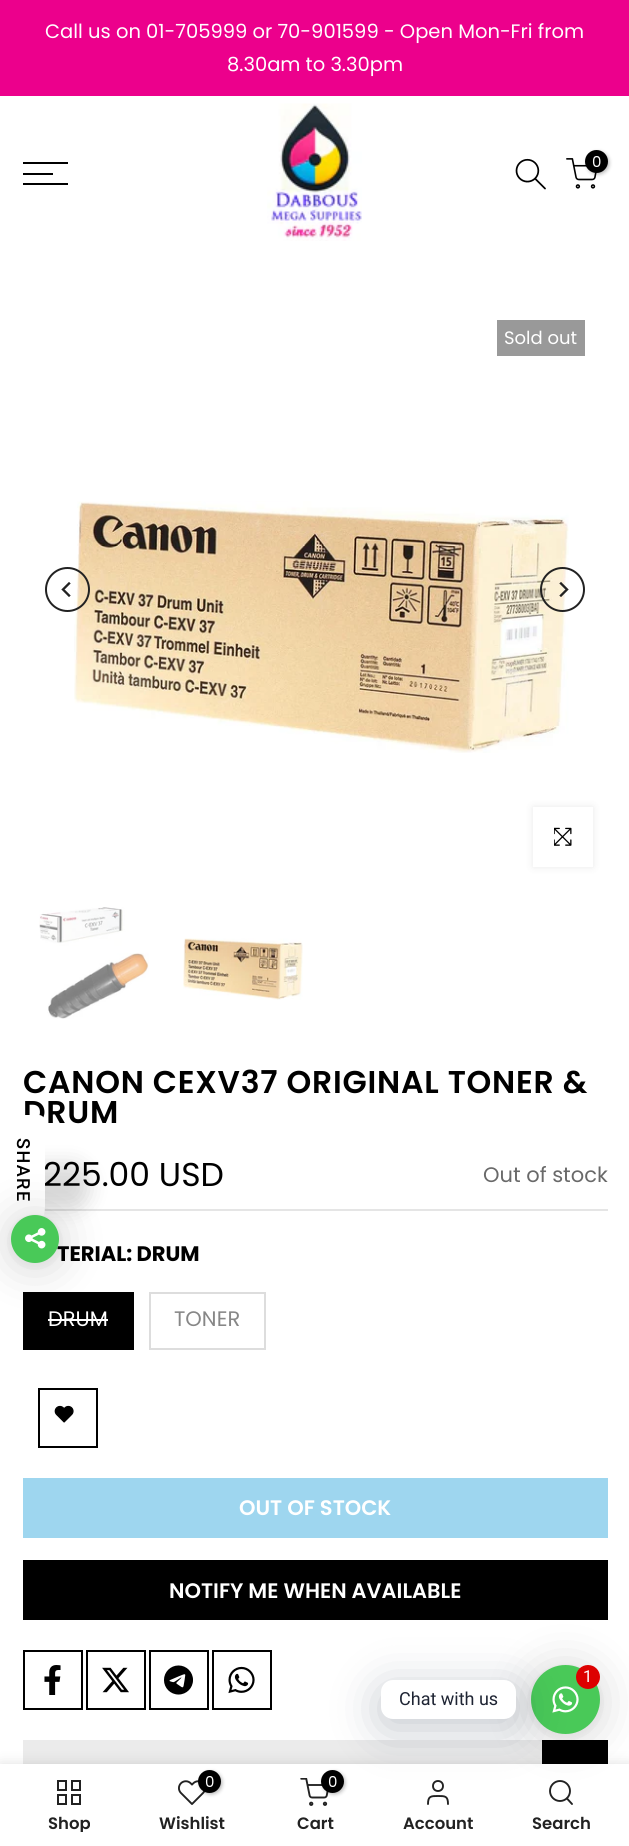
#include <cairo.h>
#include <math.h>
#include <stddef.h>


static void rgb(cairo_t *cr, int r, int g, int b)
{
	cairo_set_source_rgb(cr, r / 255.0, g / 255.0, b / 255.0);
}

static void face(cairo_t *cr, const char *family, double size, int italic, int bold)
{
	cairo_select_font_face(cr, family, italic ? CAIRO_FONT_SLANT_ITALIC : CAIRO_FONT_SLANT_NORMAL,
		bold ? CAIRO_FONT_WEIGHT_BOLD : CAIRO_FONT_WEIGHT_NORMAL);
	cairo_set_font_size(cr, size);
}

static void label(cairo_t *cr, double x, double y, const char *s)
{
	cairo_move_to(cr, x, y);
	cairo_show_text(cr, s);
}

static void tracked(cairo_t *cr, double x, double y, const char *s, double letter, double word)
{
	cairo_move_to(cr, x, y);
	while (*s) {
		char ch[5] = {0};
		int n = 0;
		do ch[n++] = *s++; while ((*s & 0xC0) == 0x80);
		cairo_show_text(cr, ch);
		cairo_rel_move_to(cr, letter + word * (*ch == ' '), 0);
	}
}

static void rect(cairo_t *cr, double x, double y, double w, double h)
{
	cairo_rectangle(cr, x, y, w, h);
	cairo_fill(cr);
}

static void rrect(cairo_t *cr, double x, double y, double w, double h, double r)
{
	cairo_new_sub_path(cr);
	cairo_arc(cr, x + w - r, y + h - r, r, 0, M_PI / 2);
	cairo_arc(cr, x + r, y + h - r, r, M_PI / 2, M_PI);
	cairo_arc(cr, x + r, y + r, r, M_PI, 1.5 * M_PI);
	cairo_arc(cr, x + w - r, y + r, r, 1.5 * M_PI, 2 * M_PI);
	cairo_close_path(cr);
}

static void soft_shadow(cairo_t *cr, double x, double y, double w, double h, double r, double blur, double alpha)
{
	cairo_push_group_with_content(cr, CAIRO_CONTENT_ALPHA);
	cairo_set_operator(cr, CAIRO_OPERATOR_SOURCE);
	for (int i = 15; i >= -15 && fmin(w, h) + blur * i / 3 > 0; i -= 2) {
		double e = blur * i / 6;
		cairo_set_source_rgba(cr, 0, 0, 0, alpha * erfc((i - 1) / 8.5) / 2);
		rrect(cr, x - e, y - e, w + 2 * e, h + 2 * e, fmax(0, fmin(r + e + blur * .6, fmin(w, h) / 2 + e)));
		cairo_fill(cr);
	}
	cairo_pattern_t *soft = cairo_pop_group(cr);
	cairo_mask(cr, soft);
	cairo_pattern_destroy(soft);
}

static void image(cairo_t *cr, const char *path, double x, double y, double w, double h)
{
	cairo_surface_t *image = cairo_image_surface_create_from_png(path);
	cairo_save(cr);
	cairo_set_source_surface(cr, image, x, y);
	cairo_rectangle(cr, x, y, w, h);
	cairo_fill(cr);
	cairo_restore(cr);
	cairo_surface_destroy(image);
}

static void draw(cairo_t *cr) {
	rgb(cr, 255, 255, 255);
	cairo_paint(cr);
	rgb(cr, 236, 0, 140);
	rect(cr, 0, 0, 629, 96);
	face(cr, "Poppins", 19.5, 0, 0);
	rgb(cr, 255, 255, 255);
	label(cr, 45, 38, "Call us on 01-705999 or 70-901599 - Open Mon-Fri from");
	label(cr, 227, 71, "8.30am to 3.30pm");
	rgb(cr, 0, 0, 0);
	rect(cr, 23, 162, 45, 2);
	rect(cr, 23, 173, 30, 2);
	rect(cr, 23, 183, 45, 2);
	image(cr, "image0.png", 267, 103, 95, 138);
	image(cr, "image1.png", 515, 158, 31, 32);
	image(cr, "image2.png", 566, 158, 31, 31);
	rgb(cr, 0, 0, 0);
	soft_shadow(cr, 587, 152, 22, 22, 11, 2, 0.3);
	rgb(cr, 0, 0, 0);
	cairo_arc(cr, 596.5, 161.5, 11.5, 0, 2 * M_PI);
	cairo_fill(cr);
	face(cr, "Poppins", 15, 0, 0);
	rgb(cr, 255, 255, 255);
	label(cr, 592, 167, "0");
	rgb(cr, 153, 153, 153);
	rect(cr, 497, 320, 88, 36);
	face(cr, "Poppins", 18, 0, 0);
	rgb(cr, 255, 255, 255);
	label(cr, 504, 344, "Sold out");
	image(cr, "image4.png", 74, 501, 495, 252);
	cairo_arc(cr, 67.5, 589.5, 21.5, 0, 2 * M_PI);
	rgb(cr, 34, 34, 34);
	cairo_stroke(cr);
	image(cr, "image3.png", 61, 582, 10, 15);
	cairo_arc(cr, 562.5, 589.5, 21.5, 0, 2 * M_PI);
	cairo_stroke(cr);
	image(cr, "image5.png", 559, 582, 10, 15);
	rgb(cr, 0, 0, 0);
	soft_shadow(cr, 533, 807, 60, 60, 0, 4, 0.09);
	rgb(cr, 255, 255, 255);
	rect(cr, 533, 807, 60, 60);
	image(cr, "image6.png", 554, 827, 18, 19);
	image(cr, "image7.png", 39, 907, 110, 112);
	image(cr, "image8.png", 183, 938, 120, 62);
	face(cr, "Poppins SemiBold", 31.5, 0, 0);
	rgb(cr, 0, 0, 0);
	tracked(cr, 23, 1093, "CANON CEXV37 ORIGINAL TONER &", 0.75, 0);
	tracked(cr, 23, 1123, "DRUM", 0.75, 0);
	rgb(cr, 229, 229, 229);
	rect(cr, 44, 1209, 564, 2);
	face(cr, "Poppins", 33, 0, 0);
	rgb(cr, 0, 0, 0);
	label(cr, 43, 1186, "225.00 USD");
	face(cr, "Poppins", 21, 0, 0);
	rgb(cr, 105, 105, 105);
	label(cr, 483, 1182, "Out of stock");
	face(cr, "Poppins", 21, 0, 1);
	rgb(cr, 0, 0, 0);
	label(cr, 57, 1261, "TERIAL: DRUM");
	rect(cr, 23, 1292, 111, 58);
	face(cr, "Poppins", 21, 0, 0);
	rgb(cr, 255, 255, 255);
	label(cr, 48, 1326, "DRUM");
	rect(cr, 48, 1319, 60, 2);
	cairo_rectangle(cr, 150, 1293, 115, 56);
	rgb(cr, 221, 221, 221);
	cairo_stroke(cr);
	rgb(cr, 135, 135, 135);
	label(cr, 174, 1326, "TONER");
	cairo_rectangle(cr, 39, 1389, 58, 58);
	rgb(cr, 0, 0, 0);
	cairo_stroke(cr);
	image(cr, "image9.png", 54, 1405, 20, 18);
	rgb(cr, 158, 214, 239);
	rect(cr, 23, 1478, 585, 60);
	face(cr, "Poppins SemiBold", 21, 0, 0);
	rgb(cr, 255, 255, 255);
	label(cr, 239, 1515, "OUT OF STOCK");
	rgb(cr, 0, 0, 0);
	rect(cr, 23, 1560, 585, 60);
	rgb(cr, 255, 255, 255);
	label(cr, 169, 1598, "NOTIFY ME WHEN AVAILABLE");
	cairo_rectangle(cr, 24, 1651, 58, 58);
	rgb(cr, 0, 0, 0);
	cairo_stroke(cr);
	image(cr, "image10.png", 44, 1665, 17, 30);
	cairo_rectangle(cr, 87, 1651, 58, 58);
	cairo_stroke(cr);
	image(cr, "image11.png", 102, 1667, 27, 26);
	cairo_rectangle(cr, 150, 1651, 58, 58);
	cairo_stroke(cr);
	image(cr, "image12.png", 164, 1665, 29, 30);
	cairo_rectangle(cr, 213, 1651, 58, 58);
	cairo_stroke(cr);
	image(cr, "image13.png", 228, 1666, 27, 28);
	rgb(cr, 235, 235, 235);
	rect(cr, 23, 1740, 519, 24);
	rgb(cr, 0, 0, 0);
	rect(cr, 542, 1740, 66, 24);
	rgb(cr, 0, 0, 0);
	soft_shadow(cr, -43, 1164, 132, 45, 42, 10.5, 0.15);
	rgb(cr, 255, 255, 255);
	cairo_new_path(cr);
	cairo_move_to(cr, 0, 1248);
	cairo_line_to(cr, 0, 1115);
	cairo_line_to(cr, 39, 1115);
	cairo_curve_to(cr, 42, 1115, 45, 1118, 45, 1121);
	cairo_line_to(cr, 45, 1206);
	cairo_curve_to(cr, 45, 1229, 26, 1248, 3, 1248);
	cairo_close_path(cr);
	cairo_fill(cr);
	face(cr, "Roboto Medium", 18, 0, 0);
	rgb(cr, 0, 0, 0);
	cairo_save(cr);
	cairo_translate(cr, 17, 1138);
	cairo_rotate(cr, 90 * M_PI / 180);
	tracked(cr, 0, 0, "SHARE", 1.5, 0);
	cairo_restore(cr);
	rgb(cr, 0, 0, 0);
	soft_shadow(cr, 11, 1218, 48, 48, 24, 24, 0.16);
	soft_shadow(cr, 11, 1217, 48, 48, 24, 4.5, 0.06);
	rgb(cr, 73, 201, 88);
	cairo_arc(cr, 35, 1239, 24, 0, 2 * M_PI);
	cairo_fill(cr);
	image(cr, "image14.png", 25, 1228, 21, 21);
	rgb(cr, 0, 0, 0);
	soft_shadow(cr, 0, 1764, 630, 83, 0, 7, 0.12);
	rgb(cr, 255, 255, 255);
	rect(cr, 0, 1764, 629, 82);
	cairo_arc(cr, 560, 1791, 10, 0, 2 * M_PI);
	rgb(cr, 34, 34, 34);
	cairo_set_line_width(cr, 1.9);
	cairo_stroke(cr);
	cairo_new_path(cr);
	cairo_move_to(cr, 572, 1804);
	cairo_line_to(cr, 567, 1798.5);
	cairo_set_line_cap(cr, CAIRO_LINE_CAP_ROUND);
	cairo_set_line_join(cr, CAIRO_LINE_JOIN_ROUND);
	cairo_stroke(cr);
	rgb(cr, 0, 0, 0);
	soft_shadow(cr, 531, 1668, 69, 69, 34.5, 24, 0.16);
	soft_shadow(cr, 531, 1667, 69, 69, 34.5, 4.5, 0.06);
	rgb(cr, 73, 201, 88);
	cairo_arc(cr, 565.5, 1699.5, 34.5, 0, 2 * M_PI);
	cairo_fill(cr);
	image(cr, "image17.png", 300, 1778, 29, 28);
	rgb(cr, 0, 0, 0);
	soft_shadow(cr, 323, 1772, 22, 22, 11, 2, 0.3);
	rgb(cr, 0, 0, 0);
	cairo_arc(cr, 332.5, 1781.5, 11.5, 0, 2 * M_PI);
	cairo_fill(cr);
	cairo_arc(cr, 438, 1786, 5, 0, 2 * M_PI);
	rgb(cr, 34, 34, 34);
	cairo_set_line_cap(cr, CAIRO_LINE_CAP_BUTT);
	cairo_set_line_join(cr, CAIRO_LINE_JOIN_MITER);
	cairo_stroke(cr);
	cairo_new_path(cr);
	cairo_move_to(cr, 448, 1804);
	cairo_curve_to(cr, 448, 1796, 445, 1796, 438, 1796);
	cairo_curve_to(cr, 431, 1796, 428, 1796, 428, 1804);
	cairo_set_line_cap(cr, CAIRO_LINE_CAP_ROUND);
	cairo_set_line_join(cr, CAIRO_LINE_JOIN_ROUND);
	cairo_stroke(cr);
	rgb(cr, 0, 18, 46);
	soft_shadow(cr, 381, 1689, 135, 39, 12, 24, 0.24);
	image(cr, "image15.png", 552, 1686, 27, 27);
	rgb(cr, 221, 0, 0);
	cairo_arc(cr, 588, 1677, 12, 0, 2 * M_PI);
	cairo_fill(cr);
	face(cr, "Roboto", 16.5, 0, 0);
	rgb(cr, 255, 255, 255);
	label(cr, 583, 1682, "1");
	rrect(cr, 381, 1680, 135, 39, 12);
	cairo_fill(cr);
	face(cr, "Roboto", 18, 0, 0);
	rgb(cr, 30, 36, 51);
	label(cr, 399, 1705, "Chat with us");
	cairo_rectangle(cr, 58, 1781, 8, 9);
	rgb(cr, 34, 34, 34);
	cairo_set_line_width(cr, 2);
	cairo_set_line_cap(cr, CAIRO_LINE_CAP_BUTT);
	cairo_set_line_join(cr, CAIRO_LINE_JOIN_MITER);
	cairo_stroke(cr);
	cairo_rectangle(cr, 72, 1781, 8, 9);
	cairo_stroke(cr);
	cairo_rectangle(cr, 58, 1795, 8, 9);
	cairo_stroke(cr);
	cairo_rectangle(cr, 72, 1795, 8, 9);
	cairo_stroke(cr);
	cairo_save(cr);
	cairo_rectangle(cr, 23, 1815, 93, 17);
	cairo_clip(cr);
	face(cr, "Poppins SemiBold", 16.5, 0, 0);
	label(cr, 48, 1829, "Shop");
	cairo_restore(cr);
	image(cr, "image16.png", 178, 1780, 27, 25);
	rgb(cr, 0, 0, 0);
	soft_shadow(cr, 200, 1772, 22, 22, 11, 2, 0.3);
	rgb(cr, 0, 0, 0);
	cairo_arc(cr, 209.5, 1781.5, 11.5, 0, 2 * M_PI);
	cairo_fill(cr);
	face(cr, "Poppins", 15, 0, 0);
	rgb(cr, 255, 255, 255);
	label(cr, 205, 1787, "0");
	face(cr, "Poppins SemiBold", 16.5, 0, 0);
	rgb(cr, 34, 34, 34);
	label(cr, 159, 1829, "Wishlist");
	face(cr, "Poppins", 15, 0, 0);
	rgb(cr, 255, 255, 255);
	label(cr, 328, 1787, "0");
	face(cr, "Poppins SemiBold", 16.5, 0, 0);
	rgb(cr, 34, 34, 34);
	label(cr, 297, 1829, "Cart");
	label(cr, 403, 1829, "Account");
	label(cr, 532, 1829, "Search");
}

int main(void) {
	cairo_surface_t *surface = cairo_image_surface_create(CAIRO_FORMAT_RGB24, 629, 1846);
	cairo_t *cr = cairo_create(surface);
	cairo_font_options_t *options = cairo_font_options_create();
	cairo_font_options_set_hint_metrics(options, CAIRO_HINT_METRICS_OFF);
	cairo_font_options_set_hint_style(options, CAIRO_HINT_STYLE_NONE);
	cairo_set_font_options(cr, options);
	cairo_set_miter_limit(cr, 4);
	draw(cr);
	cairo_surface_write_to_png(surface, "render.png");
	cairo_font_options_destroy(options);
	cairo_destroy(cr);
	cairo_surface_destroy(surface);
	return 0;
}
